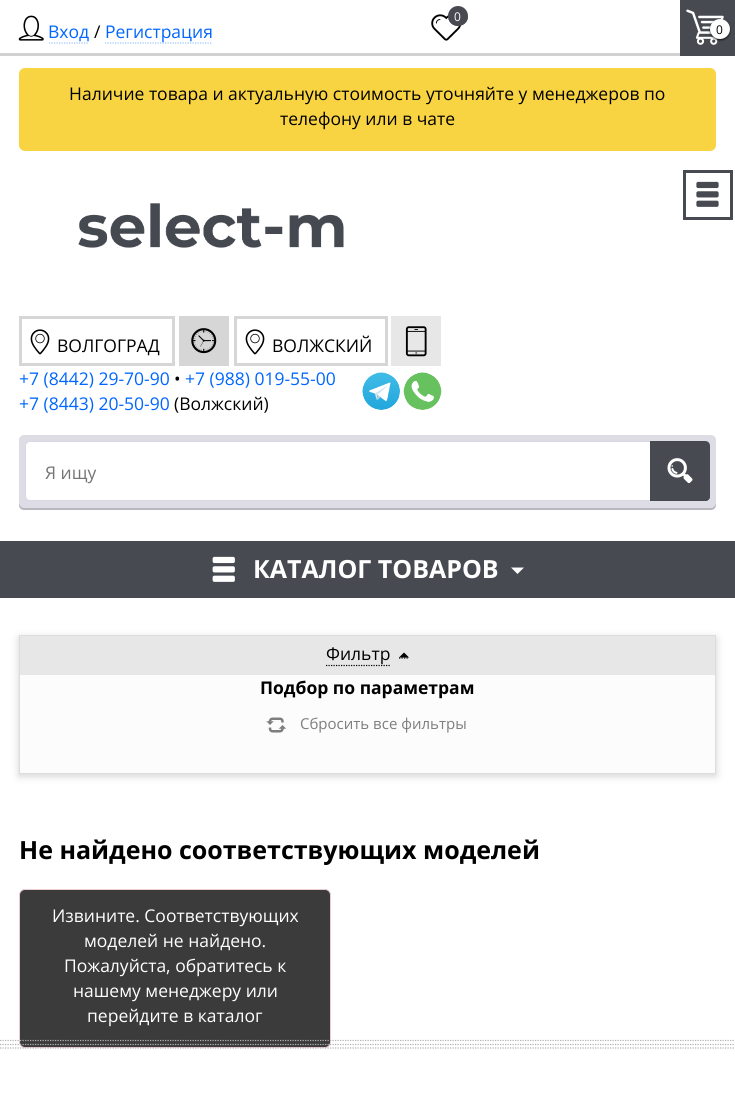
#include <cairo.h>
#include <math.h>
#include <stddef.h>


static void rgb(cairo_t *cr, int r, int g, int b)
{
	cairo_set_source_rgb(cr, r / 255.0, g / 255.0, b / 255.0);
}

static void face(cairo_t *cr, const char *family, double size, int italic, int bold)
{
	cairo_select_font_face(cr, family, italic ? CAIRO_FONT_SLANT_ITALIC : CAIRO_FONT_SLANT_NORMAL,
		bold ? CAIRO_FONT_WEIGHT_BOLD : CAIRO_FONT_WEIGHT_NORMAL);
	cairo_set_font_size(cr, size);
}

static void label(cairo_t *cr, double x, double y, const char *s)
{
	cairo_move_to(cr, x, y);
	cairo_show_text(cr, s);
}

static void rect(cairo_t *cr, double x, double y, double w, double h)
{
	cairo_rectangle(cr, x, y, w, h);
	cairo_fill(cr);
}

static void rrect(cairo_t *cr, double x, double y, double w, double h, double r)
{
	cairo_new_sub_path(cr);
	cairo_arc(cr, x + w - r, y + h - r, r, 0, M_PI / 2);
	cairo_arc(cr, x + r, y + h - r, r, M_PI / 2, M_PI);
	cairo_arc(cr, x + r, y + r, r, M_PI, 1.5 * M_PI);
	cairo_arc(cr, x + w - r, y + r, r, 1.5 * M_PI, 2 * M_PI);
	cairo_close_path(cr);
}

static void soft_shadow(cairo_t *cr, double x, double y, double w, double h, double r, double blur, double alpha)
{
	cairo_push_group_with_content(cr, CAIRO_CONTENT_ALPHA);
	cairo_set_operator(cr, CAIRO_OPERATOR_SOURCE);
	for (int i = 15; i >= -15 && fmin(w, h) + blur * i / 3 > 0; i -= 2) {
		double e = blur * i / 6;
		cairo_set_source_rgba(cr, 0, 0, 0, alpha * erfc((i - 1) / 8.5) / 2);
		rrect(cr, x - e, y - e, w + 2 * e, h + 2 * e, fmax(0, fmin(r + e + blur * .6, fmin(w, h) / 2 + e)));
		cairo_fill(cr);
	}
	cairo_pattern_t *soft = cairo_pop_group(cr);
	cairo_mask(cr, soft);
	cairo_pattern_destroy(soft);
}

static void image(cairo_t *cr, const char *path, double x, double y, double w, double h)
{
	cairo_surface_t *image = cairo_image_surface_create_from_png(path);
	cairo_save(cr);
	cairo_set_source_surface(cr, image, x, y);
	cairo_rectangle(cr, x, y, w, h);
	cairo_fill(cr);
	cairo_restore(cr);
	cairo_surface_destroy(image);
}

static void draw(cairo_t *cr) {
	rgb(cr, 255, 255, 255);
	cairo_paint(cr);
	rgb(cr, 209, 209, 209);
	rect(cr, 0, 53, 680, 3);
	image(cr, "image0.png", 431, 14, 30, 27);
	rgb(cr, 71, 74, 81);
	cairo_arc(cr, 458, 16, 10, 0, 2 * M_PI);
	cairo_fill(cr);
	cairo_new_path(cr);
	cairo_move_to(cr, 467.5, 14);
	cairo_curve_to(cr, 468, 25.5, 452, 27.5, 448, 17.5);
	cairo_curve_to(cr, 450.5, 31, 471, 27, 467.5, 14);
	cairo_close_path(cr);
	cairo_fill(cr);
	face(cr, "Open Sans", 12, 0, 0);
	rgb(cr, 255, 255, 255);
	label(cr, 454, 21, "0");
	image(cr, "image1.png", 18, 15, 26, 26);
	face(cr, "Open Sans", 17.5, 0, 0);
	rgb(cr, 0, 102, 255);
	label(cr, 48, 38, "Вход");
	cairo_new_path(cr);
	cairo_move_to(cr, 49, 43);
	cairo_line_to(cr, 89, 43);
	rgb(cr, 153, 194, 255);
	cairo_set_line_width(cr, 1.2);
	cairo_set_dash(cr, (double[]){1.25, 1.25}, 2, 0);
	cairo_stroke(cr);
	rgb(cr, 0, 0, 0);
	label(cr, 94, 38, "/");
	cairo_new_path(cr);
	cairo_move_to(cr, 105, 43);
	cairo_line_to(cr, 212.5, 43);
	rgb(cr, 153, 194, 255);
	cairo_stroke(cr);
	rgb(cr, 0, 102, 255);
	label(cr, 105, 38, "Регистрация");
	rgb(cr, 71, 74, 81);
	rect(cr, 680, 0, 55, 56);
	image(cr, "image2.png", 686, 9, 38, 36);
	rgb(cr, 0, 0, 0);
	soft_shadow(cr, 710, 20, 20, 20, 10, 1, 0.79);
	rgb(cr, 255, 255, 255);
	cairo_arc(cr, 720, 29, 10, 0, 2 * M_PI);
	cairo_fill(cr);
	face(cr, "Open Sans", 12, 0, 0);
	rgb(cr, 0, 0, 0);
	label(cr, 716, 34, "0");
	rgb(cr, 249, 212, 66);
	rrect(cr, 19, 68, 697, 83, 6);
	cairo_fill(cr);
	face(cr, "Open Sans", 17.5, 0, 0);
	rgb(cr, 0, 0, 0);
	label(cr, 69, 100, "Наличие товара и актуальную стоимость уточняйте у менеджеров по");
	label(cr, 280, 125, "телефону или в чате");
	cairo_rectangle(cr, 684.5, 171.5, 47, 47);
	rgb(cr, 71, 74, 81);
	cairo_set_line_width(cr, 3);
	cairo_set_dash(cr, NULL, 0, 0);
	cairo_stroke(cr);
	image(cr, "image3.png", 696, 181, 23, 26);
	image(cr, "image4.png", 78, 203, 266, 45);
	cairo_rectangle(cr, 20.5, 317.5, 153, 47);
	rgb(cr, 214, 214, 214);
	cairo_stroke(cr);
	image(cr, "image5.png", 30, 329, 20, 26);
	rgb(cr, 0, 0, 0);
	label(cr, 57, 352, "ВОЛГОГРАД");
	rgb(cr, 214, 214, 214);
	rect(cr, 179, 316, 50, 50);
	image(cr, "image6.png", 191, 328, 26, 26);
	cairo_rectangle(cr, 235.5, 317.5, 151, 47);
	cairo_stroke(cr);
	image(cr, "image5.png", 245, 329, 20, 26);
	rgb(cr, 0, 0, 0);
	label(cr, 272, 352, "ВОЛЖСКИЙ");
	rgb(cr, 231, 231, 231);
	rect(cr, 391, 316, 50, 50);
	image(cr, "image7.png", 405, 326, 22, 31);
	rgb(cr, 0, 102, 255);
	label(cr, 19, 385, "+7 (8442) 29-70-90");
	rgb(cr, 0, 0, 0);
	label(cr, 174, 385, "•");
	rgb(cr, 0, 102, 255);
	label(cr, 185, 385, "+7 (988) 019-55-00");
	image(cr, "image8.png", 362, 372, 39, 38);
	image(cr, "image9.png", 403, 372, 39, 38);
	label(cr, 19, 410, "+7 (8443) 20-50-90");
	rgb(cr, 0, 0, 0);
	label(cr, 174, 410, "(Волжский)");
	rgb(cr, 222, 220, 228);
	rrect(cr, 19, 435, 697, 75, 5);
	cairo_fill(cr);
	cairo_set_source_rgba(cr, 0, 0, 0, 0.17);
	cairo_new_path(cr);
	cairo_move_to(cr, 19, 502);
	cairo_line_to(cr, 19, 505);
	cairo_curve_to(cr, 19, 508, 21, 510, 24, 510);
	cairo_line_to(cr, 711, 510);
	cairo_curve_to(cr, 714, 510, 716, 508, 716, 505);
	cairo_line_to(cr, 716, 502);
	cairo_curve_to(cr, 716, 505, 714, 508, 711, 508);
	cairo_line_to(cr, 24, 508);
	cairo_curve_to(cr, 21, 508, 19, 505, 19, 502);
	cairo_close_path(cr);
	cairo_fill(cr);
	rgb(cr, 255, 255, 255);
	rrect(cr, 25.5, 441.5, 684, 59, 4.5);
	cairo_fill_preserve(cr);
	rgb(cr, 217, 215, 229);
	cairo_set_line_width(cr, 1);
	cairo_stroke(cr);
	rgb(cr, 117, 117, 117);
	label(cr, 45, 479, "Я ищу");
	rgb(cr, 71, 74, 81);
	cairo_new_path(cr);
	cairo_move_to(cr, 650, 441);
	cairo_line_to(cr, 705, 441);
	cairo_curve_to(cr, 708, 441, 710, 443, 710, 446);
	cairo_line_to(cr, 710, 496);
	cairo_curve_to(cr, 710, 499, 708, 501, 705, 501);
	cairo_line_to(cr, 650, 501);
	cairo_close_path(cr);
	cairo_fill(cr);
	cairo_new_path(cr);
	cairo_move_to(cr, 650, 499);
	cairo_line_to(cr, 650, 501);
	cairo_line_to(cr, 705, 501);
	cairo_curve_to(cr, 708, 501, 710, 499, 710, 496);
	cairo_line_to(cr, 710, 494);
	cairo_curve_to(cr, 710, 497, 708, 499, 705, 499);
	cairo_close_path(cr);
	cairo_fill(cr);
	image(cr, "image10.png", 667, 458, 26, 26);
	rect(cr, 0, 541, 735, 57);
	image(cr, "image11.png", 212, 556, 23, 26);
	face(cr, "Open Sans", 25, 0, 1);
	rgb(cr, 255, 255, 255);
	label(cr, 253, 578, "КАТАЛОГ ТОВАРОВ");
	cairo_new_path(cr);
	cairo_move_to(cr, 511, 567.5);
	cairo_line_to(cr, 524, 567.5);
	cairo_line_to(cr, 517.5, 574);
	cairo_close_path(cr);
	cairo_fill(cr);
	rgb(cr, 0, 0, 0);
	soft_shadow(cr, 19, 638, 697, 138, 0, 4, 0.18);
	rgb(cr, 252, 252, 252);
	rect(cr, 20, 675, 695, 98);
	cairo_rectangle(cr, 19.5, 635.5, 696, 138);
	rgb(cr, 221, 221, 221);
	cairo_stroke(cr);
	rgb(cr, 231, 231, 231);
	rect(cr, 20, 636, 695, 39);
	cairo_new_path(cr);
	cairo_move_to(cr, 326, 665.5);
	cairo_line_to(cr, 390, 665.5);
	rgb(cr, 0, 0, 0);
	cairo_set_line_width(cr, 1.2);
	cairo_set_dash(cr, (double[]){1.25, 1.25}, 2, 0);
	cairo_stroke(cr);
	cairo_new_path(cr);
	cairo_move_to(cr, 399, 658);
	cairo_line_to(cr, 409, 658);
	cairo_stroke(cr);
	face(cr, "Open Sans", 17.5, 0, 0);
	label(cr, 326, 660, "Фильтр");
	cairo_new_path(cr);
	cairo_move_to(cr, 409, 657.5);
	cairo_line_to(cr, 399, 657.5);
	cairo_line_to(cr, 404, 652.5);
	cairo_close_path(cr);
	cairo_fill(cr);
	face(cr, "Open Sans", 17.5, 0, 1);
	label(cr, 260, 694, "Подбор по параметрам");
	image(cr, "image12.png", 266, 717, 20, 16);
	face(cr, "Open Sans", 15, 0, 0);
	rgb(cr, 126, 126, 126);
	label(cr, 300, 729, "Сбросить все фильтры");
	face(cr, "Open Sans", 25, 0, 1);
	rgb(cr, 0, 0, 0);
	label(cr, 19, 859, "Не найдено соответствующих моделей");
	rgb(cr, 59, 59, 59);
	rrect(cr, 19.5, 889.5, 311, 158, 5.5);
	cairo_fill_preserve(cr);
	rgb(cr, 235, 204, 209);
	cairo_set_line_width(cr, 1);
	cairo_set_dash(cr, NULL, 0, 0);
	cairo_stroke(cr);
	face(cr, "Open Sans", 17.5, 0, 0);
	rgb(cr, 255, 255, 255);
	label(cr, 52, 922, "Извините. Соответствующих");
	label(cr, 84, 947, "моделей не найдено.");
	label(cr, 64, 972, "Пожалуйста, обратитесь к");
	label(cr, 73, 997, "нашему менеджеру или");
	label(cr, 87, 1022, "перейдите в каталог");
	cairo_new_path(cr);
	cairo_move_to(cr, 0, 1048);
	cairo_line_to(cr, 735, 1048);
	rgb(cr, 178, 178, 178);
	cairo_set_line_width(cr, 1.2);
	cairo_set_dash(cr, (double[]){1.25, 1.25}, 2, 0);
	cairo_stroke(cr);
	cairo_new_path(cr);
	cairo_move_to(cr, 0, 1040.5);
	cairo_line_to(cr, 735, 1040.5);
	cairo_stroke(cr);
	cairo_new_path(cr);
	cairo_move_to(cr, 0, 1044.5);
	cairo_line_to(cr, 735, 1044.5);
	cairo_stroke(cr);
}

int main(void) {
	cairo_surface_t *surface = cairo_image_surface_create(CAIRO_FORMAT_RGB24, 735, 1112);
	cairo_t *cr = cairo_create(surface);
	cairo_font_options_t *options = cairo_font_options_create();
	cairo_font_options_set_hint_metrics(options, CAIRO_HINT_METRICS_OFF);
	cairo_font_options_set_hint_style(options, CAIRO_HINT_STYLE_NONE);
	cairo_set_font_options(cr, options);
	cairo_set_miter_limit(cr, 4);
	draw(cr);
	cairo_surface_write_to_png(surface, "render.png");
	cairo_font_options_destroy(options);
	cairo_destroy(cr);
	cairo_surface_destroy(surface);
	return 0;
}
